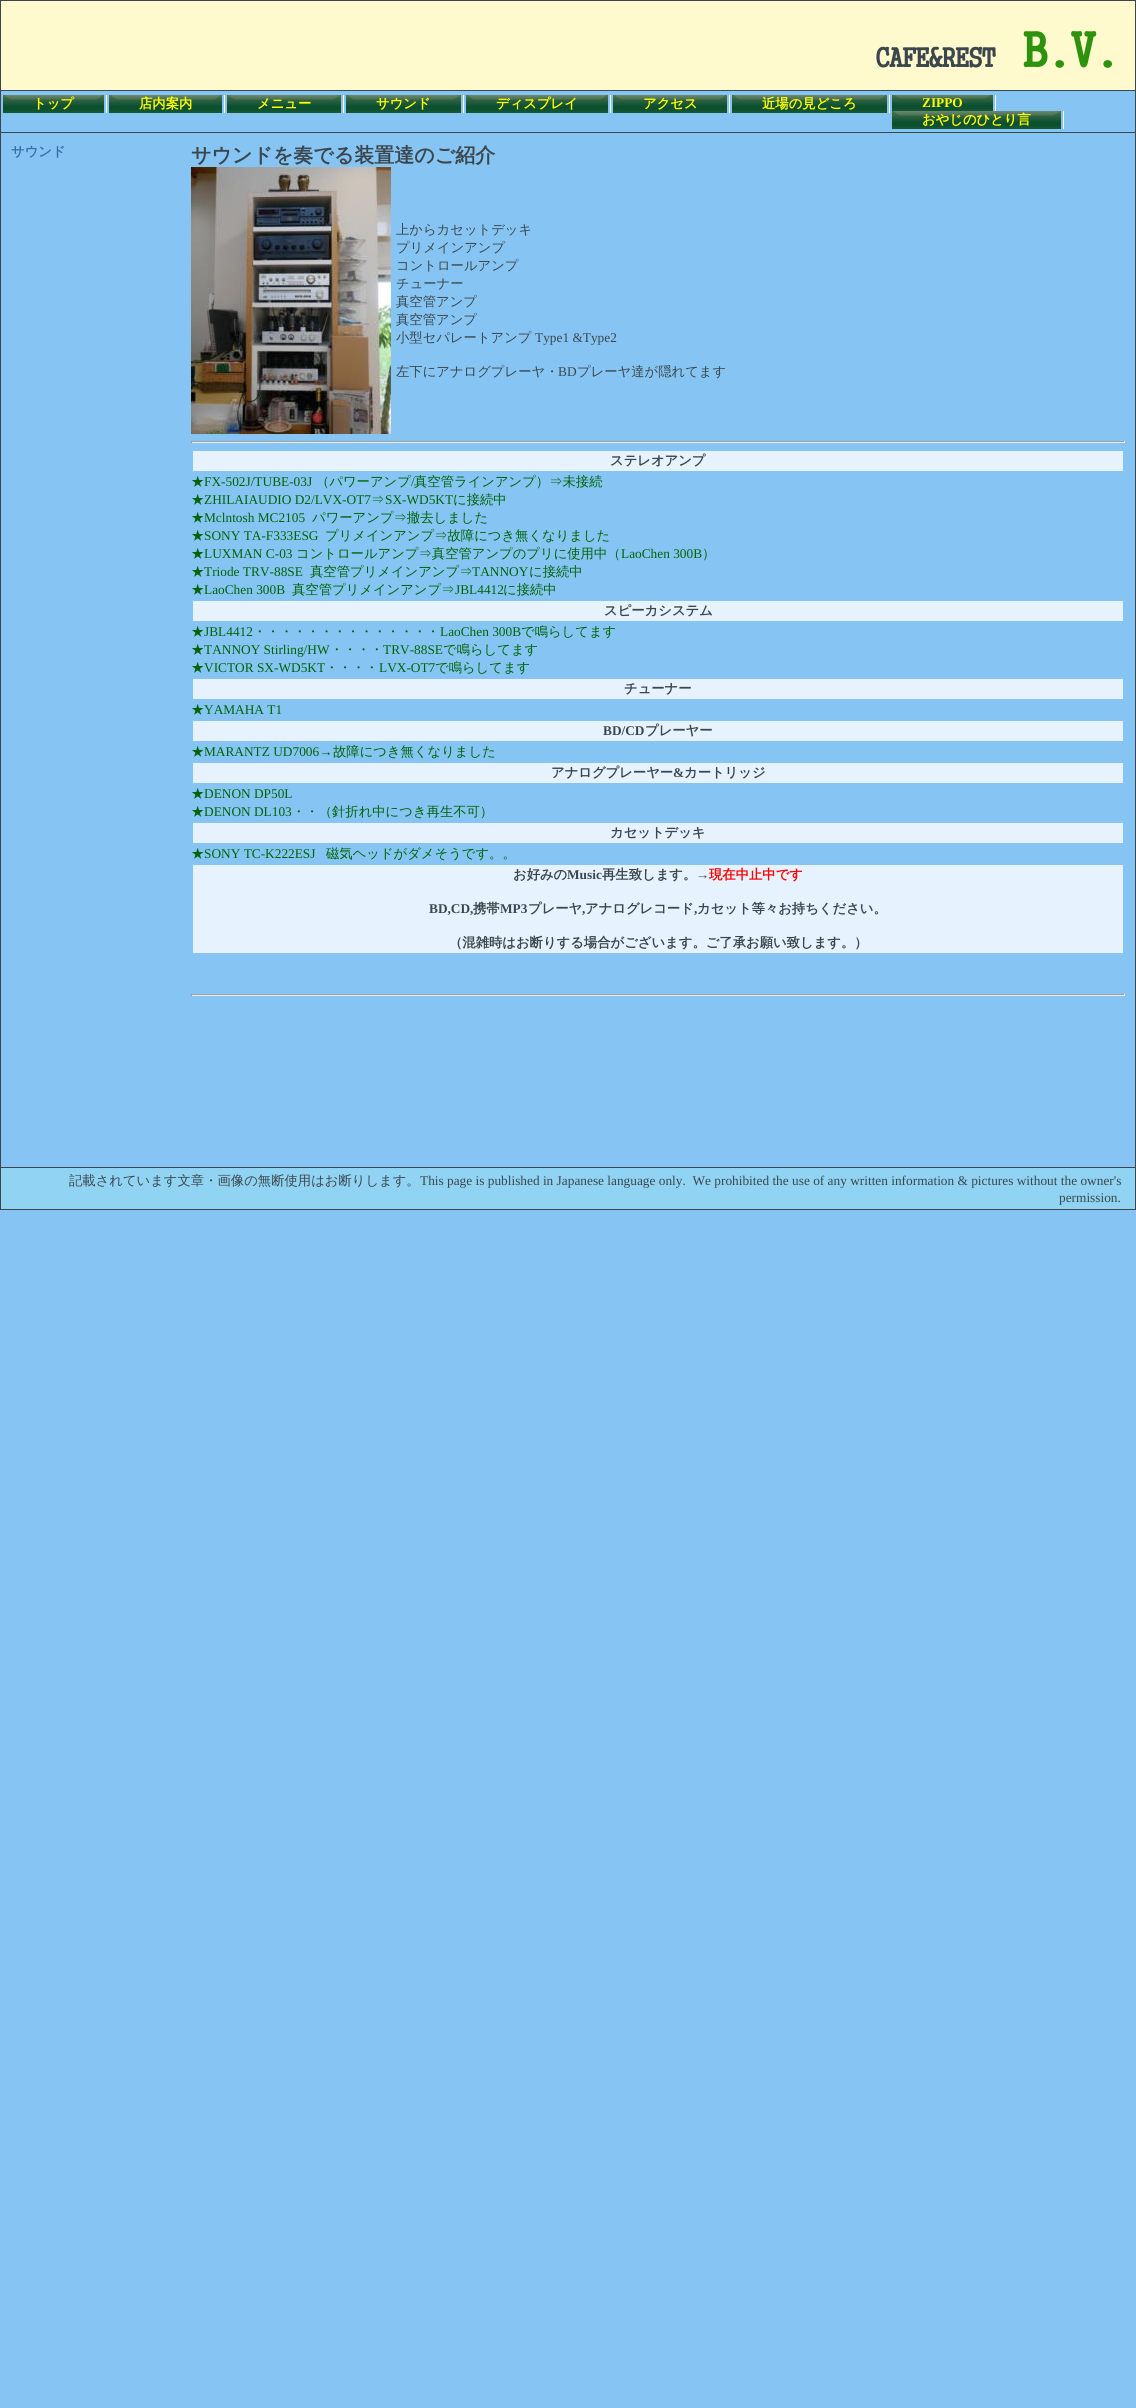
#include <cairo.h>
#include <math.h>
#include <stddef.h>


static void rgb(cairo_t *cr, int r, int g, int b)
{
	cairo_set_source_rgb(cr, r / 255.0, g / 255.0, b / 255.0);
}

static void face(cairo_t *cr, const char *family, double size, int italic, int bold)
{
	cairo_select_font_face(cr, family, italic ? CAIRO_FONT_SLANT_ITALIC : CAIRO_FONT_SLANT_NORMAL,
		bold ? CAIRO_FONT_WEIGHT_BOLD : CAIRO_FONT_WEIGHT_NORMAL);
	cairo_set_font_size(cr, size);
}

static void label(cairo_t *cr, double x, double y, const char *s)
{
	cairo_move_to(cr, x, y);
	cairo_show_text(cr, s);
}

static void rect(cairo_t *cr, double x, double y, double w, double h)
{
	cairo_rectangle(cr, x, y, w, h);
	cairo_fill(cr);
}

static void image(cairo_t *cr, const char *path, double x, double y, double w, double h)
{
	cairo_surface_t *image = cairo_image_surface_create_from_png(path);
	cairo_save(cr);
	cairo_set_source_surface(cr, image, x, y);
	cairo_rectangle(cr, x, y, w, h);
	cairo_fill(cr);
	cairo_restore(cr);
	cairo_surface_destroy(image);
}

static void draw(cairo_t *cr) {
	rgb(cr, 134, 197, 243);
	cairo_paint(cr);
	cairo_rectangle(cr, 0.5, 0.5, 1135, 1209);
	rgb(cr, 59, 71, 76);
	cairo_set_line_width(cr, 1);
	cairo_stroke(cr);
	rgb(cr, 255, 250, 205);
	rect(cr, 1, 1, 1134, 89);
	rgb(cr, 59, 71, 76);
	rect(cr, 1, 90, 1134, 1);
	face(cr, "GungsuhChe", 26.5, 0, 1);
	label(cr, 876, 67, "CAFE&REST");
	face(cr, "GungsuhChe", 48, 0, 1);
	rgb(cr, 47, 146, 15);
	label(cr, 1023, 67, "B.V.");
	rgb(cr, 59, 71, 76);
	rect(cr, 1, 132, 1134, 1);
	image(cr, "image0.png", 3, 95, 10, 18);
	rgb(cr, 255, 255, 255);
	rect(cr, 106, 95, 1, 18);
	image(cr, "image1.png", 94, 95, 10, 18);
	image(cr, "image2.png", 13, 95, 81, 18);
	face(cr, "WenQuanYi Zen Hei", 13.33, 0, 1);
	rgb(cr, 255, 255, 0);
	label(cr, 33, 108, "トップ");
	image(cr, "image0.png", 109, 95, 10, 18);
	rgb(cr, 255, 255, 255);
	rect(cr, 224, 95, 1, 18);
	image(cr, "image1.png", 212, 95, 10, 18);
	image(cr, "image3.png", 119, 95, 93, 18);
	rgb(cr, 255, 255, 0);
	label(cr, 139, 108, "店内案内");
	image(cr, "image0.png", 227, 95, 10, 18);
	rgb(cr, 255, 255, 255);
	rect(cr, 343, 95, 1, 18);
	image(cr, "image1.png", 331, 95, 10, 18);
	image(cr, "image4.png", 237, 95, 94, 18);
	rgb(cr, 255, 255, 0);
	label(cr, 257, 108, "メニュー");
	image(cr, "image0.png", 346, 95, 10, 18);
	rgb(cr, 255, 255, 255);
	rect(cr, 463, 95, 1, 18);
	image(cr, "image1.png", 451, 95, 10, 18);
	image(cr, "image5.png", 356, 95, 95, 18);
	rgb(cr, 255, 255, 0);
	label(cr, 376, 108, "サウンド");
	image(cr, "image0.png", 466, 95, 10, 18);
	rgb(cr, 255, 255, 255);
	rect(cr, 610, 95, 1, 18);
	image(cr, "image1.png", 598, 95, 10, 18);
	image(cr, "image6.png", 476, 95, 122, 18);
	rgb(cr, 255, 255, 0);
	label(cr, 496, 108, "ディスプレイ");
	image(cr, "image0.png", 613, 95, 10, 18);
	rgb(cr, 255, 255, 255);
	rect(cr, 729, 95, 1, 18);
	image(cr, "image1.png", 717, 95, 10, 18);
	image(cr, "image4.png", 623, 95, 94, 18);
	rgb(cr, 255, 255, 0);
	label(cr, 643, 108, "アクセス");
	image(cr, "image0.png", 732, 95, 10, 18);
	rgb(cr, 255, 255, 255);
	rect(cr, 889, 95, 1, 18);
	image(cr, "image1.png", 877, 95, 10, 18);
	image(cr, "image7.png", 742, 95, 135, 18);
	rgb(cr, 255, 255, 0);
	label(cr, 762, 108, "近場の見どころ");
	image(cr, "image8.png", 892, 95, 10, 16);
	rgb(cr, 255, 255, 255);
	rect(cr, 995, 95, 1, 16);
	image(cr, "image9.png", 983, 95, 10, 16);
	image(cr, "image10.png", 902, 95, 81, 16);
	face(cr, "Liberation Serif", 13.33, 0, 1);
	rgb(cr, 255, 255, 0);
	label(cr, 922, 107, "ZIPPO");
	image(cr, "image0.png", 892, 111, 10, 18);
	rgb(cr, 255, 255, 255);
	rect(cr, 1063, 111, 1, 18);
	image(cr, "image1.png", 1051, 111, 10, 18);
	image(cr, "image11.png", 902, 111, 149, 18);
	face(cr, "WenQuanYi Zen Hei", 13.33, 0, 1);
	rgb(cr, 255, 255, 0);
	label(cr, 922, 124, "おやじのひとり言");
	rgb(cr, 56, 111, 171);
	label(cr, 11, 156, "サウンド");
	face(cr, "WenQuanYi Zen Hei", 20, 0, 1);
	rgb(cr, 59, 71, 76);
	label(cr, 191, 162, "サウンドを奏でる装置達のご紹介");
	image(cr, "image12.png", 191, 167, 200, 267);
	face(cr, "WenQuanYi Zen Hei Medium", 13.33, 0, 0);
	label(cr, 396, 234, "上からカセットデッキ");
	label(cr, 396, 252, "プリメインアンプ");
	label(cr, 396, 270, "コントロールアンプ");
	label(cr, 396, 288, "チューナー");
	label(cr, 396, 306, "真空管アンプ");
	label(cr, 396, 324, "真空管アンプ");
	label(cr, 396, 342, "小型セパレートアンプ");
	face(cr, "Liberation Serif", 13.33, 0, 0);
	label(cr, 535, 342, "Type1 &Type2");
	face(cr, "WenQuanYi Zen Hei Medium", 13.33, 0, 0);
	label(cr, 396, 376, "左下にアナログプレーヤ・");
	face(cr, "Liberation Serif", 13.33, 0, 0);
	label(cr, 558, 376, "BD");
	face(cr, "WenQuanYi Zen Hei Medium", 13.33, 0, 0);
	label(cr, 577, 376, "プレーヤ達が隠れてます");
	rgb(cr, 159, 159, 159);
	rect(cr, 191, 441, 934, 1);
	rgb(cr, 238, 238, 238);
	rect(cr, 1124, 441, 1, 2);
	rect(cr, 191, 442, 934, 1);
	rgb(cr, 159, 159, 159);
	rect(cr, 191, 441, 1, 2);
	rgb(cr, 230, 243, 255);
	rect(cr, 193, 451, 930, 20);
	face(cr, "WenQuanYi Zen Hei", 13.33, 0, 1);
	rgb(cr, 59, 71, 76);
	label(cr, 610, 465, "ステレオアンプ");
	face(cr, "WenQuanYi Zen Hei Medium", 13.33, 0, 0);
	rgb(cr, 0, 99, 8);
	label(cr, 191, 486, "★");
	face(cr, "Liberation Serif", 13.33, 0, 0);
	label(cr, 204, 486, "FX-502J/TUBE-03J");
	face(cr, "WenQuanYi Zen Hei Medium", 13.33, 0, 0);
	label(cr, 316, 486, "（パワーアンプ");
	face(cr, "Liberation Serif", 13.33, 0, 0);
	label(cr, 411, 486, "/");
	face(cr, "WenQuanYi Zen Hei Medium", 13.33, 0, 0);
	label(cr, 414, 486, "真空管ラインアンプ）⇒未接続");
	label(cr, 191, 504, "★");
	face(cr, "Liberation Serif", 13.33, 0, 0);
	label(cr, 204, 504, "ZHILAIAUDIO D2/LVX-OT7");
	face(cr, "WenQuanYi Zen Hei Medium", 13.33, 0, 0);
	label(cr, 371, 504, "⇒");
	face(cr, "Liberation Serif", 13.33, 0, 0);
	label(cr, 385, 504, "SX-WD5KT");
	face(cr, "WenQuanYi Zen Hei Medium", 13.33, 0, 0);
	label(cr, 453, 504, "に接続中");
	label(cr, 191, 522, "★");
	face(cr, "Liberation Serif", 13.33, 0, 0);
	label(cr, 204, 522, "Mclntosh MC2105");
	face(cr, "WenQuanYi Zen Hei Medium", 13.33, 0, 0);
	label(cr, 312, 522, "パワーアンプ⇒撤去しました");
	label(cr, 191, 540, "★");
	face(cr, "Liberation Serif", 13.33, 0, 0);
	label(cr, 204, 540, "SONY TA-F333ESG");
	face(cr, "WenQuanYi Zen Hei Medium", 13.33, 0, 0);
	label(cr, 325, 540, "プリメインアンプ⇒故障につき無くなりました");
	label(cr, 191, 558, "★");
	face(cr, "Liberation Serif", 13.33, 0, 0);
	label(cr, 204, 558, "LUXMAN C-03");
	face(cr, "WenQuanYi Zen Hei Medium", 13.33, 0, 0);
	label(cr, 296, 558, "コントロールアンプ⇒真空管アンプのプリに使用中（");
	face(cr, "Liberation Serif", 13.33, 0, 0);
	label(cr, 621, 558, "LaoChen 300B");
	face(cr, "WenQuanYi Zen Hei Medium", 13.33, 0, 0);
	label(cr, 702, 558, "）");
	label(cr, 191, 576, "★");
	face(cr, "Liberation Serif", 13.33, 0, 0);
	label(cr, 204, 576, "Triode TRV-88SE");
	face(cr, "WenQuanYi Zen Hei Medium", 13.33, 0, 0);
	label(cr, 310, 576, "真空管プリメインアンプ⇒");
	face(cr, "Liberation Serif", 13.33, 0, 0);
	label(cr, 472, 576, "TANNOY");
	face(cr, "WenQuanYi Zen Hei Medium", 13.33, 0, 0);
	label(cr, 529, 576, "に接続中");
	label(cr, 191, 594, "★");
	face(cr, "Liberation Serif", 13.33, 0, 0);
	label(cr, 204, 594, "LaoChen 300B");
	face(cr, "WenQuanYi Zen Hei Medium", 13.33, 0, 0);
	label(cr, 292, 594, "真空管プリメインアンプ⇒");
	face(cr, "Liberation Serif", 13.33, 0, 0);
	label(cr, 455, 594, "JBL4412");
	face(cr, "WenQuanYi Zen Hei Medium", 13.33, 0, 0);
	label(cr, 503, 594, "に接続中");
	rgb(cr, 230, 243, 255);
	rect(cr, 193, 601, 930, 20);
	face(cr, "WenQuanYi Zen Hei", 13.33, 0, 1);
	rgb(cr, 59, 71, 76);
	label(cr, 604, 615, "スピーカシステム");
	face(cr, "WenQuanYi Zen Hei Medium", 13.33, 0, 0);
	rgb(cr, 0, 99, 8);
	label(cr, 191, 636, "★");
	face(cr, "Liberation Serif", 13.33, 0, 0);
	label(cr, 204, 636, "JBL4412");
	face(cr, "WenQuanYi Zen Hei Medium", 13.33, 0, 0);
	label(cr, 253, 636, "・・・・・・・・・・・・・・");
	face(cr, "Liberation Serif", 13.33, 0, 0);
	label(cr, 440, 636, "LaoChen 300B");
	face(cr, "WenQuanYi Zen Hei Medium", 13.33, 0, 0);
	label(cr, 521, 636, "で鳴らしてます");
	label(cr, 191, 654, "★");
	face(cr, "Liberation Serif", 13.33, 0, 0);
	label(cr, 204, 654, "TANNOY Stirling/HW");
	face(cr, "WenQuanYi Zen Hei Medium", 13.33, 0, 0);
	label(cr, 330, 654, "・・・・");
	face(cr, "Liberation Serif", 13.33, 0, 0);
	label(cr, 383, 654, "TRV-88SE");
	face(cr, "WenQuanYi Zen Hei Medium", 13.33, 0, 0);
	label(cr, 443, 654, "で鳴らしてます");
	label(cr, 191, 672, "★");
	face(cr, "Liberation Serif", 13.33, 0, 0);
	label(cr, 204, 672, "VICTOR SX-WD5KT");
	face(cr, "WenQuanYi Zen Hei Medium", 13.33, 0, 0);
	label(cr, 325, 672, "・・・・");
	face(cr, "Liberation Serif", 13.33, 0, 0);
	label(cr, 379, 672, "LVX-OT7");
	face(cr, "WenQuanYi Zen Hei Medium", 13.33, 0, 0);
	label(cr, 435, 672, "で鳴らしてます");
	rgb(cr, 230, 243, 255);
	rect(cr, 193, 679, 930, 20);
	face(cr, "WenQuanYi Zen Hei", 13.33, 0, 1);
	rgb(cr, 59, 71, 76);
	label(cr, 624, 693, "チューナー");
	face(cr, "WenQuanYi Zen Hei Medium", 13.33, 0, 0);
	rgb(cr, 0, 99, 8);
	label(cr, 191, 714, "★");
	face(cr, "Liberation Serif", 13.33, 0, 0);
	label(cr, 204, 714, "YAMAHA T1");
	rgb(cr, 230, 243, 255);
	rect(cr, 193, 721, 930, 20);
	face(cr, "Liberation Serif", 13.33, 0, 1);
	rgb(cr, 59, 71, 76);
	label(cr, 603, 735, "BD/CD");
	face(cr, "WenQuanYi Zen Hei", 13.33, 0, 1);
	label(cr, 645, 735, "プレーヤー");
	face(cr, "WenQuanYi Zen Hei Medium", 13.33, 0, 0);
	rgb(cr, 0, 99, 8);
	label(cr, 191, 756, "★");
	face(cr, "Liberation Serif", 13.33, 0, 0);
	label(cr, 204, 756, "MARANTZ UD7006→");
	face(cr, "WenQuanYi Zen Hei Medium", 13.33, 0, 0);
	label(cr, 333, 756, "故障につき無くなりました");
	rgb(cr, 230, 243, 255);
	rect(cr, 193, 763, 930, 20);
	face(cr, "WenQuanYi Zen Hei", 13.33, 0, 1);
	rgb(cr, 59, 71, 76);
	label(cr, 551, 777, "アナログプレーヤー");
	face(cr, "Liberation Serif", 13.33, 0, 1);
	label(cr, 673, 777, "&");
	face(cr, "WenQuanYi Zen Hei", 13.33, 0, 1);
	label(cr, 684, 777, "カートリッジ");
	face(cr, "WenQuanYi Zen Hei Medium", 13.33, 0, 0);
	rgb(cr, 0, 99, 8);
	label(cr, 191, 798, "★");
	face(cr, "Liberation Serif", 13.33, 0, 0);
	label(cr, 204, 798, "DENON DP50L");
	face(cr, "WenQuanYi Zen Hei Medium", 13.33, 0, 0);
	label(cr, 191, 816, "★");
	face(cr, "Liberation Serif", 13.33, 0, 0);
	label(cr, 204, 816, "DENON DL103");
	face(cr, "WenQuanYi Zen Hei Medium", 13.33, 0, 0);
	label(cr, 292, 816, "・・（針折れ中につき再生不可）");
	rgb(cr, 230, 243, 255);
	rect(cr, 193, 823, 930, 20);
	face(cr, "WenQuanYi Zen Hei", 13.33, 0, 1);
	rgb(cr, 59, 71, 76);
	label(cr, 610, 837, "カセットデッキ");
	face(cr, "WenQuanYi Zen Hei Medium", 13.33, 0, 0);
	rgb(cr, 0, 99, 8);
	label(cr, 191, 858, "★");
	face(cr, "Liberation Serif", 13.33, 0, 0);
	label(cr, 204, 858, "SONY TC-K222ESJ");
	face(cr, "WenQuanYi Zen Hei Medium", 13.33, 0, 0);
	label(cr, 326, 858, "磁気ヘッドがダメそうです。。");
	rgb(cr, 230, 243, 255);
	rect(cr, 193, 865, 930, 88);
	face(cr, "WenQuanYi Zen Hei", 13.33, 0, 1);
	rgb(cr, 59, 71, 76);
	label(cr, 513, 879, "お好みの");
	face(cr, "Liberation Serif", 13.33, 0, 1);
	label(cr, 567, 879, "Music");
	face(cr, "WenQuanYi Zen Hei", 13.33, 0, 1);
	label(cr, 602, 879, "再生致します。");
	face(cr, "Liberation Serif", 13.33, 0, 1);
	label(cr, 696, 879, "→");
	face(cr, "WenQuanYi Zen Hei", 13.33, 0, 1);
	rgb(cr, 255, 0, 0);
	label(cr, 709, 879, "現在中止中です");
	face(cr, "Liberation Serif", 13.33, 0, 1);
	rgb(cr, 59, 71, 76);
	label(cr, 429, 913, "BD,CD,");
	face(cr, "WenQuanYi Zen Hei", 13.33, 0, 1);
	label(cr, 473, 913, "携帯");
	face(cr, "Liberation Serif", 13.33, 0, 1);
	label(cr, 500, 913, "MP3");
	face(cr, "WenQuanYi Zen Hei", 13.33, 0, 1);
	label(cr, 528, 913, "プレーヤ");
	face(cr, "Liberation Serif", 13.33, 0, 1);
	label(cr, 582, 913, ",");
	face(cr, "WenQuanYi Zen Hei", 13.33, 0, 1);
	label(cr, 585, 913, "アナログレコード");
	face(cr, "Liberation Serif", 13.33, 0, 1);
	label(cr, 694, 913, ",");
	face(cr, "WenQuanYi Zen Hei", 13.33, 0, 1);
	label(cr, 697, 913, "カセット等々お持ちください。");
	label(cr, 449, 947, "（混雑時はお断りする場合がございます。ご了承お願い致します。）");
	rgb(cr, 159, 159, 159);
	rect(cr, 191, 994, 934, 1);
	rgb(cr, 238, 238, 238);
	rect(cr, 1124, 994, 1, 2);
	rect(cr, 191, 995, 934, 1);
	rgb(cr, 159, 159, 159);
	rect(cr, 191, 994, 1, 2);
	rgb(cr, 145, 211, 243);
	rect(cr, 1, 1168, 1134, 41);
	rgb(cr, 59, 71, 76);
	rect(cr, 1, 1167, 1134, 1);
	face(cr, "WenQuanYi Zen Hei Medium", 13.33, 0, 0);
	label(cr, 69, 1185, "記載されています文章・画像の無断使用はお断りします。");
	face(cr, "Liberation Serif", 13.33, 0, 0);
	label(cr, 420, 1185, "This page is published in Japanese language only.  We prohibited the use of any written information & pictures without the owner's");
	label(cr, 1059, 1202, "permission.");
}

int main(void) {
	cairo_surface_t *surface = cairo_image_surface_create(CAIRO_FORMAT_RGB24, 1136, 2408);
	cairo_t *cr = cairo_create(surface);
	cairo_font_options_t *options = cairo_font_options_create();
	cairo_font_options_set_hint_metrics(options, CAIRO_HINT_METRICS_OFF);
	cairo_font_options_set_hint_style(options, CAIRO_HINT_STYLE_NONE);
	cairo_set_font_options(cr, options);
	cairo_set_miter_limit(cr, 4);
	draw(cr);
	cairo_surface_write_to_png(surface, "render.png");
	cairo_font_options_destroy(options);
	cairo_destroy(cr);
	cairo_surface_destroy(surface);
	return 0;
}
